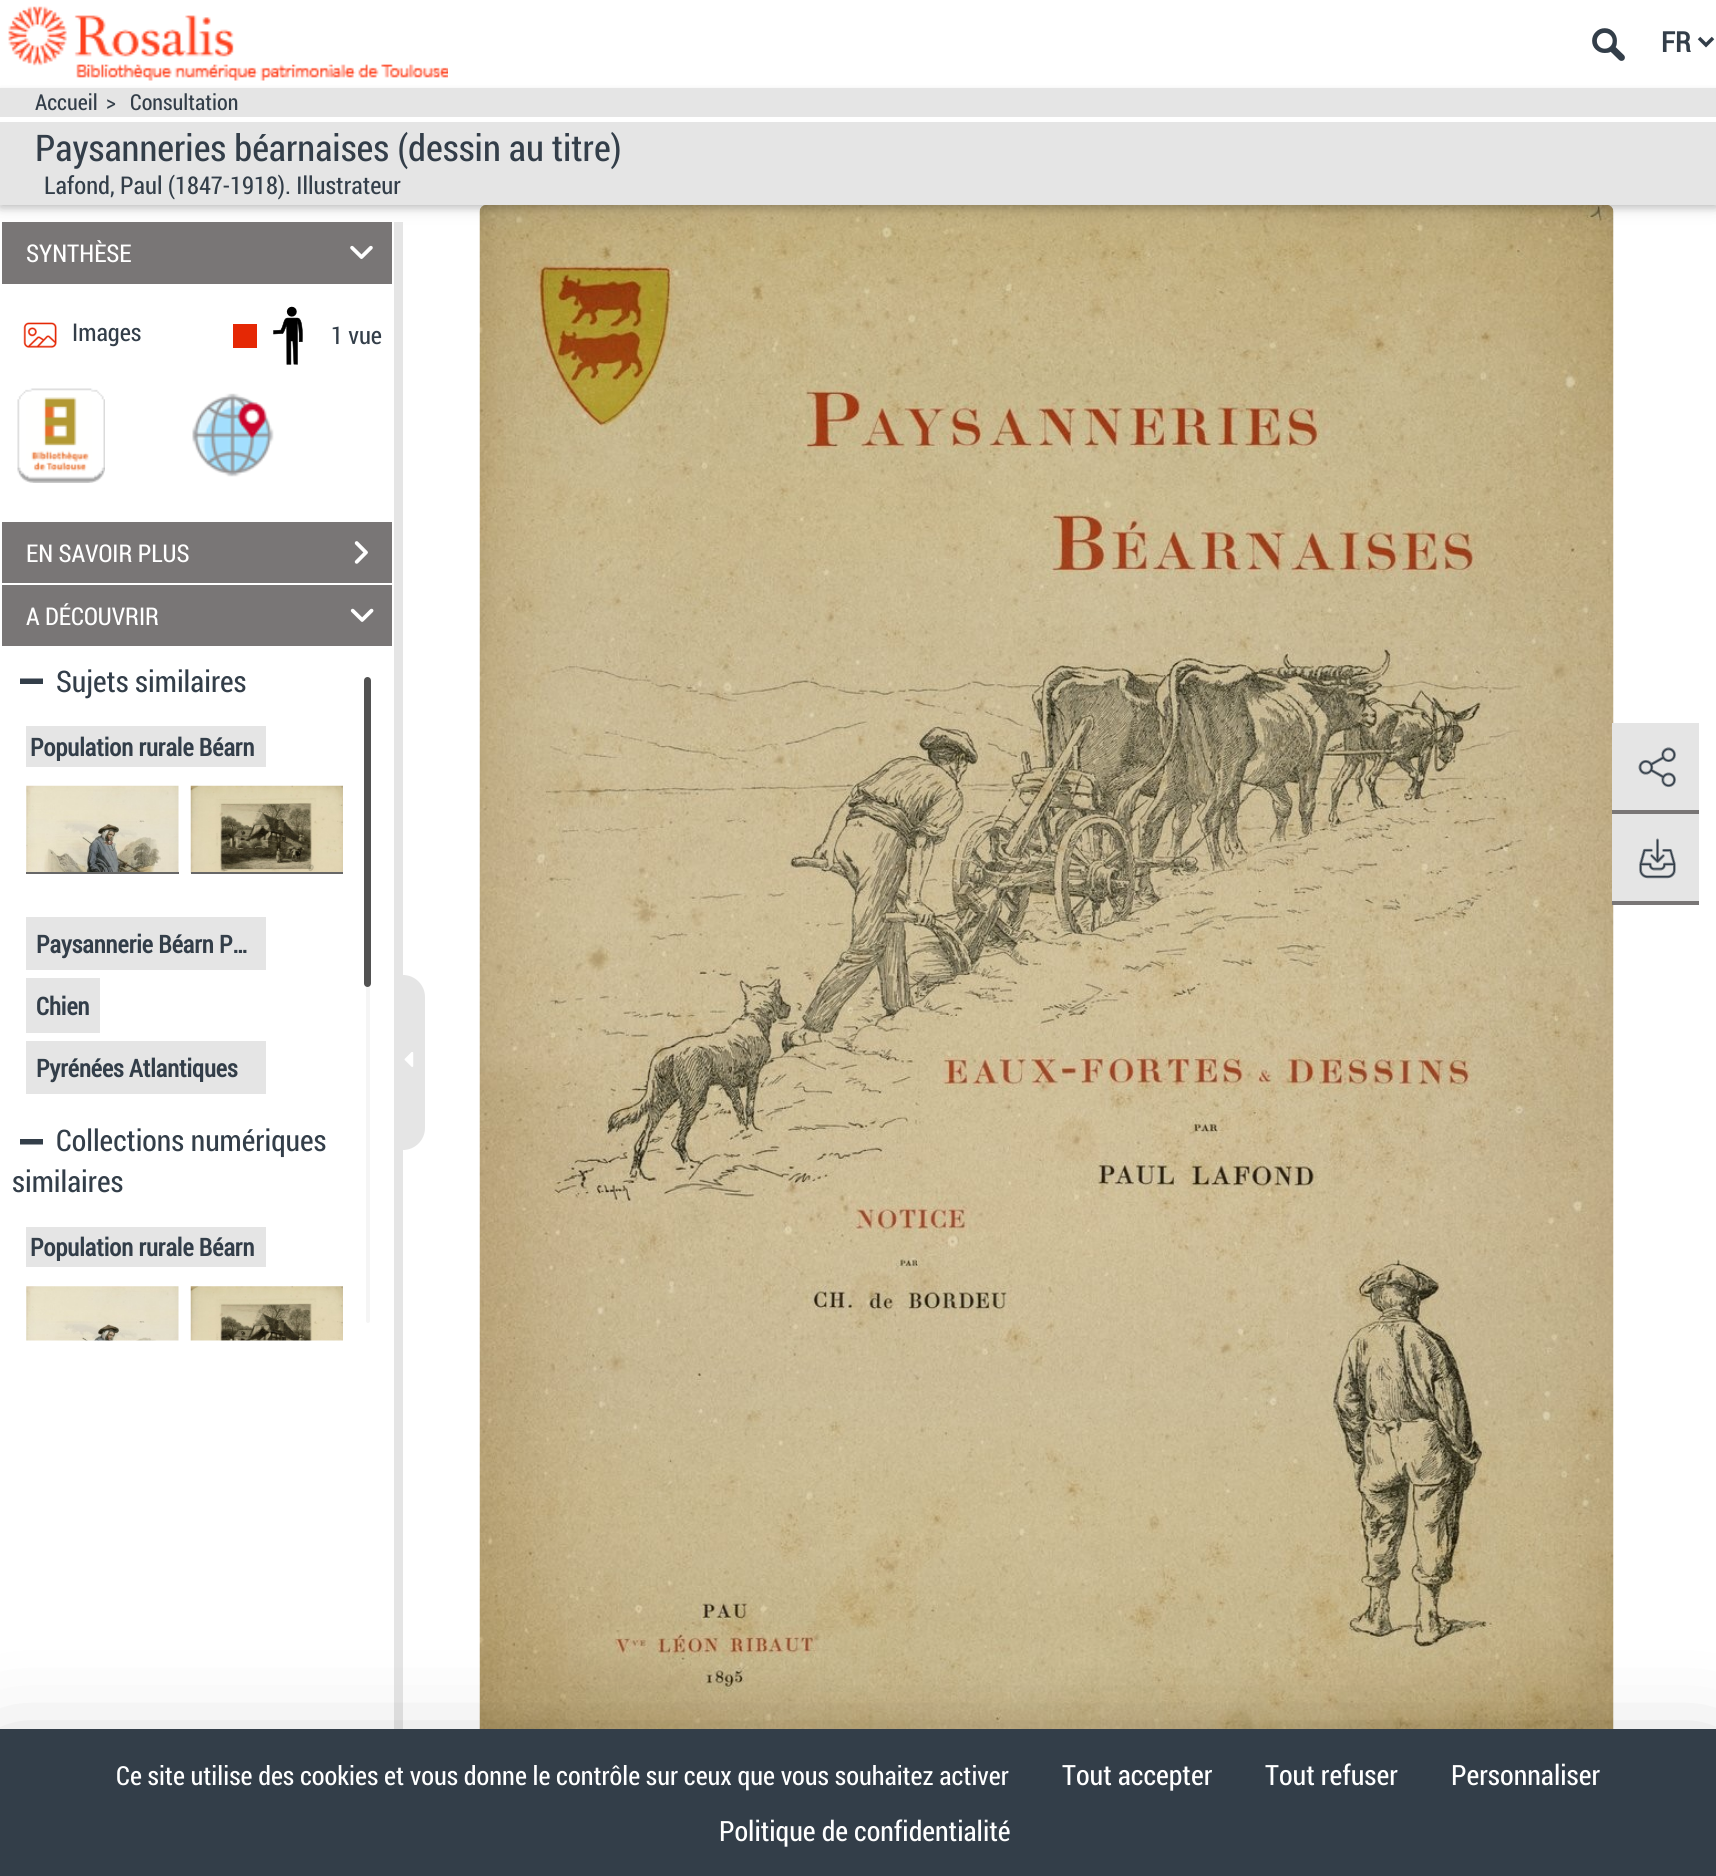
#include <cairo.h>
#include <math.h>
#include <stddef.h>


static void rgb(cairo_t *cr, int r, int g, int b)
{
	cairo_set_source_rgb(cr, r / 255.0, g / 255.0, b / 255.0);
}

static void face(cairo_t *cr, const char *family, double size, int italic, int bold)
{
	cairo_select_font_face(cr, family, italic ? CAIRO_FONT_SLANT_ITALIC : CAIRO_FONT_SLANT_NORMAL,
		bold ? CAIRO_FONT_WEIGHT_BOLD : CAIRO_FONT_WEIGHT_NORMAL);
	cairo_set_font_size(cr, size);
}

static void label(cairo_t *cr, double x, double y, const char *s)
{
	cairo_move_to(cr, x, y);
	cairo_show_text(cr, s);
}

static void rect(cairo_t *cr, double x, double y, double w, double h)
{
	cairo_rectangle(cr, x, y, w, h);
	cairo_fill(cr);
}

static void rrect(cairo_t *cr, double x, double y, double w, double h, double r)
{
	cairo_new_sub_path(cr);
	cairo_arc(cr, x + w - r, y + h - r, r, 0, M_PI / 2);
	cairo_arc(cr, x + r, y + h - r, r, M_PI / 2, M_PI);
	cairo_arc(cr, x + r, y + r, r, M_PI, 1.5 * M_PI);
	cairo_arc(cr, x + w - r, y + r, r, 1.5 * M_PI, 2 * M_PI);
	cairo_close_path(cr);
}

static void soft_shadow(cairo_t *cr, double x, double y, double w, double h, double r, double blur, double alpha)
{
	cairo_push_group_with_content(cr, CAIRO_CONTENT_ALPHA);
	cairo_set_operator(cr, CAIRO_OPERATOR_SOURCE);
	for (int i = 15; i >= -15 && fmin(w, h) + blur * i / 3 > 0; i -= 2) {
		double e = blur * i / 6;
		cairo_set_source_rgba(cr, 0, 0, 0, alpha * erfc((i - 1) / 8.5) / 2);
		rrect(cr, x - e, y - e, w + 2 * e, h + 2 * e, fmax(0, fmin(r + e + blur * .6, fmin(w, h) / 2 + e)));
		cairo_fill(cr);
	}
	cairo_pattern_t *soft = cairo_pop_group(cr);
	cairo_mask(cr, soft);
	cairo_pattern_destroy(soft);
}

static void image(cairo_t *cr, const char *path, double x, double y, double w, double h)
{
	cairo_surface_t *image = cairo_image_surface_create_from_png(path);
	cairo_save(cr);
	cairo_set_source_surface(cr, image, x, y);
	cairo_rectangle(cr, x, y, w, h);
	cairo_fill(cr);
	cairo_restore(cr);
	cairo_surface_destroy(image);
}

static void draw(cairo_t *cr) {
	rgb(cr, 255, 255, 255);
	cairo_paint(cr);
	image(cr, "image14.png", 479, 205, 1135, 1524);
	cairo_save(cr);
	cairo_rectangle(cr, 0, 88, 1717, 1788);
	cairo_clip(cr);
	rgb(cr, 0, 0, 0);
	soft_shadow(cr, 0, 91, 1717, 117, 0, 9, 0.12);
	cairo_restore(cr);
	rgb(cr, 0, 0, 0);
	soft_shadow(cr, 0, 91, 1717, 117, 0, 3.5, 0.16);
	image(cr, "image0.png", 8, 6, 440, 75);
	image(cr, "image1.png", 1592, 28, 33, 33);
	cairo_new_path(cr);
	cairo_move_to(cr, 1699, 38);
	cairo_line_to(cr, 1706, 45);
	cairo_line_to(cr, 1713, 38);
	rgb(cr, 51, 62, 73);
	cairo_set_line_width(cr, 3.5);
	cairo_stroke(cr);
	face(cr, "Roboto Condensed", 28, 0, 1);
	label(cr, 1661, 52, "FR");
	rgb(cr, 229, 229, 229);
	rect(cr, 0, 88, 1716, 117);
	rgb(cr, 255, 255, 255);
	rect(cr, 0, 117, 1716, 5);
	face(cr, "Roboto Condensed", 22, 0, 0);
	rgb(cr, 51, 62, 73);
	label(cr, 35, 110, "Accueil");
	label(cr, 106, 110, ">");
	label(cr, 130, 110, "Consultation");
	face(cr, "Roboto Condensed", 36.75, 0, 0);
	label(cr, 35, 161, "Paysanneries béarnaises (dessin au titre)");
	face(cr, "Roboto Condensed", 24.5, 0, 0);
	label(cr, 44, 194, "Lafond, Paul (1847-1918). Illustrateur");
	rgb(cr, 229, 229, 229);
	rect(cr, 394, 222, 9, 1507);
	rgb(cr, 121, 118, 118);
	rect(cr, 2, 222, 390, 62);
	rgb(cr, 255, 255, 255);
	label(cr, 26, 262, "SYNTHÈSE");
	image(cr, "image2.png", 350, 245, 23, 14);
	image(cr, "image3.png", 23, 322, 34, 26);
	rgb(cr, 51, 62, 73);
	label(cr, 72, 341, "Images");
	rgb(cr, 229, 40, 5);
	rect(cr, 233, 324, 24, 24);
	image(cr, "image4.png", 273, 306, 30, 59);
	rgb(cr, 51, 62, 73);
	label(cr, 331, 344, "1 vue");
	image(cr, "image5.png", 17, 388, 88, 95);
	image(cr, "image6.png", 192, 393, 82, 84);
	rgb(cr, 121, 118, 118);
	rect(cr, 2, 522, 390, 61);
	rgb(cr, 255, 255, 255);
	label(cr, 26, 562, "EN SAVOIR PLUS");
	image(cr, "image7.png", 354, 541, 14, 23);
	rgb(cr, 121, 118, 118);
	rect(cr, 2, 585, 390, 61);
	rgb(cr, 255, 255, 255);
	label(cr, 26, 625, "A DÉCOUVRIR");
	image(cr, "image8.png", 350, 608, 24, 14);
	face(cr, "Roboto Condensed", 29.75, 0, 0);
	rgb(cr, 51, 62, 73);
	label(cr, 56, 692, "Sujets similaires");
	cairo_new_path(cr);
	cairo_move_to(cr, 28.5, 684);
	cairo_line_to(cr, 20, 684);
	cairo_line_to(cr, 20, 678.5);
	cairo_line_to(cr, 43, 678.5);
	cairo_line_to(cr, 43, 684);
	cairo_close_path(cr);
	cairo_fill(cr);
	rgb(cr, 229, 229, 229);
	rect(cr, 26, 726, 240, 41);
	face(cr, "Roboto Condensed", 24.5, 0, 1);
	rgb(cr, 51, 62, 73);
	label(cr, 30, 756, "Population rurale Béarn");
	image(cr, "image9.png", 26, 785, 153, 87);
	rgb(cr, 103, 103, 103);
	rect(cr, 26, 872, 153, 2);
	image(cr, "image10.png", 190, 785, 153, 89);
	rect(cr, 191, 872, 152, 2);
	rgb(cr, 229, 229, 229);
	rect(cr, 26, 917, 240, 53);
	rgb(cr, 51, 62, 73);
	label(cr, 36, 953, "Paysannerie Béarn P…");
	rgb(cr, 229, 229, 229);
	rect(cr, 26, 978, 74, 55);
	rgb(cr, 51, 62, 73);
	label(cr, 36, 1015, "Chien");
	rgb(cr, 229, 229, 229);
	rect(cr, 26, 1041, 240, 53);
	rgb(cr, 51, 62, 73);
	label(cr, 36, 1077, "Pyrénées Atlantiques");
	face(cr, "Roboto Condensed", 29.75, 0, 0);
	label(cr, 56, 1151, "Collections numériques");
	cairo_new_path(cr);
	cairo_move_to(cr, 28.5, 1144.5);
	cairo_line_to(cr, 20, 1144.5);
	cairo_line_to(cr, 20, 1139);
	cairo_line_to(cr, 43, 1139);
	cairo_line_to(cr, 43, 1144.5);
	cairo_close_path(cr);
	cairo_fill(cr);
	label(cr, 12, 1192, "similaires");
	rgb(cr, 229, 229, 229);
	rect(cr, 26, 1227, 240, 40);
	face(cr, "Roboto Condensed", 24.5, 0, 1);
	rgb(cr, 51, 62, 73);
	label(cr, 30, 1256, "Population rurale Béarn");
	image(cr, "image11.png", 26, 1286, 153, 55);
	image(cr, "image12.png", 190, 1286, 153, 55);
	rgb(cr, 245, 245, 245);
	rrect(cr, 366, 677, 4, 646, 2);
	cairo_fill(cr);
	rgb(cr, 82, 82, 82);
	rrect(cr, 364, 677, 7, 310, 3.5);
	cairo_fill(cr);
	rgb(cr, 229, 229, 229);
	cairo_new_path(cr);
	cairo_move_to(cr, 404, 976);
	cairo_line_to(cr, 403, 976);
	cairo_curve_to(cr, 414.5, 976, 424, 985.5, 424, 997);
	cairo_line_to(cr, 424, 1128);
	cairo_curve_to(cr, 424, 1139.5, 414.5, 1149, 403, 1149);
	cairo_line_to(cr, 404, 1149);
	cairo_close_path(cr);
	cairo_fill_preserve(cr);
	cairo_set_line_width(cr, 2);
	cairo_stroke(cr);
	image(cr, "image13.png", 404, 1052, 10, 15);
	rect(cr, 1612, 723, 87, 87);
	image(cr, "image15.png", 1638, 747, 38, 41);
	rgb(cr, 121, 118, 118);
	rect(cr, 1612, 810, 87, 4);
	rgb(cr, 229, 229, 229);
	rect(cr, 1612, 814, 87, 87);
	image(cr, "image16.png", 1639, 838, 37, 41);
	rgb(cr, 121, 118, 118);
	rect(cr, 1612, 901, 87, 4);
	rgb(cr, 0, 0, 0);
	soft_shadow(cr, 0, 1764, 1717, 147, 0, 52.5, 0.25);
	rgb(cr, 51, 62, 73);
	rect(cr, 0, 1729, 1716, 147);
	face(cr, "Roboto Condensed", 26.25, 0, 0);
	rgb(cr, 255, 255, 255);
	label(cr, 116, 1785, "Ce site utilise des cookies et vous donne le contrôle sur ceux que vous souhaitez activer");
	face(cr, "Roboto Condensed", 28, 0, 0);
	label(cr, 1062, 1785, "Tout accepter");
	label(cr, 1265, 1785, "Tout refuser");
	label(cr, 1451, 1785, "Personnaliser");
	label(cr, 719, 1841, "Politique de confidentialité");
}

int main(void) {
	cairo_surface_t *surface = cairo_image_surface_create(CAIRO_FORMAT_RGB24, 1716, 1876);
	cairo_t *cr = cairo_create(surface);
	cairo_font_options_t *options = cairo_font_options_create();
	cairo_font_options_set_hint_metrics(options, CAIRO_HINT_METRICS_OFF);
	cairo_font_options_set_hint_style(options, CAIRO_HINT_STYLE_NONE);
	cairo_set_font_options(cr, options);
	cairo_set_miter_limit(cr, 4);
	draw(cr);
	cairo_surface_write_to_png(surface, "render.png");
	cairo_font_options_destroy(options);
	cairo_destroy(cr);
	cairo_surface_destroy(surface);
	return 0;
}
